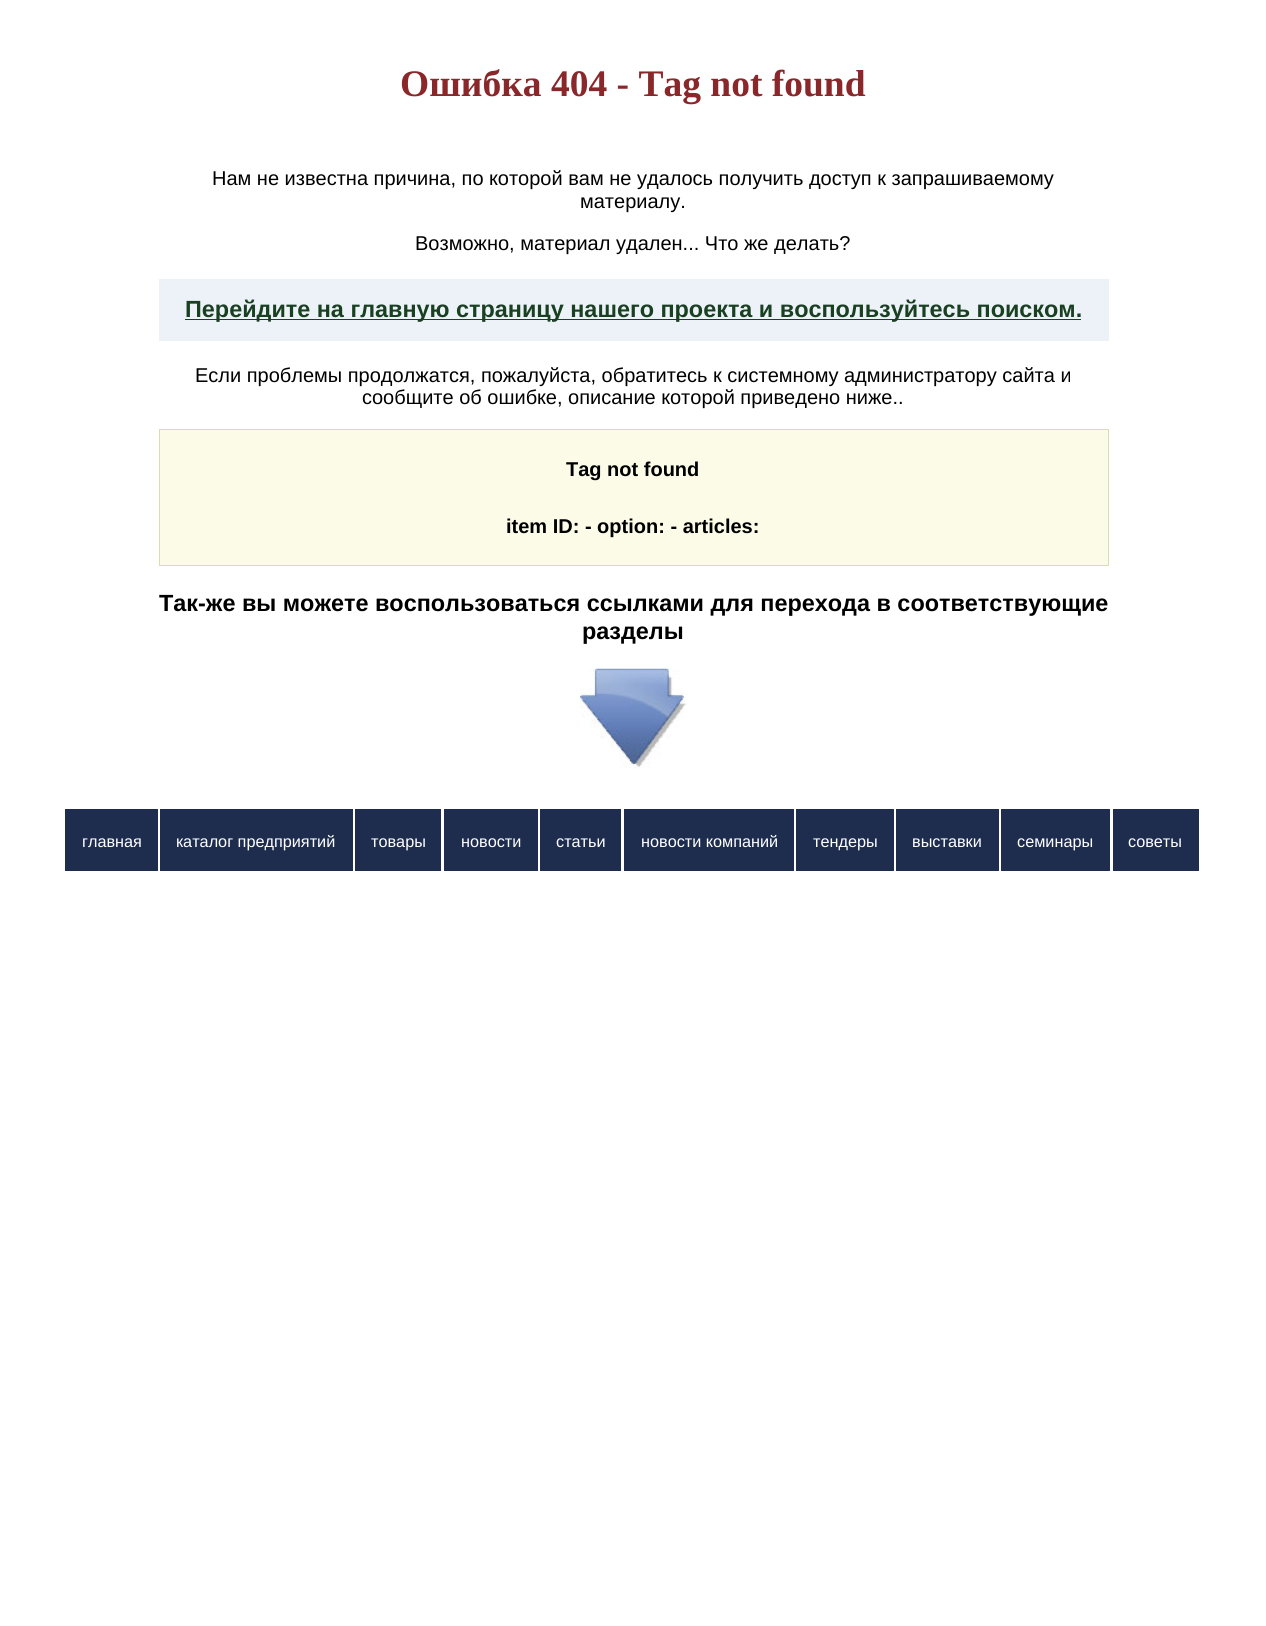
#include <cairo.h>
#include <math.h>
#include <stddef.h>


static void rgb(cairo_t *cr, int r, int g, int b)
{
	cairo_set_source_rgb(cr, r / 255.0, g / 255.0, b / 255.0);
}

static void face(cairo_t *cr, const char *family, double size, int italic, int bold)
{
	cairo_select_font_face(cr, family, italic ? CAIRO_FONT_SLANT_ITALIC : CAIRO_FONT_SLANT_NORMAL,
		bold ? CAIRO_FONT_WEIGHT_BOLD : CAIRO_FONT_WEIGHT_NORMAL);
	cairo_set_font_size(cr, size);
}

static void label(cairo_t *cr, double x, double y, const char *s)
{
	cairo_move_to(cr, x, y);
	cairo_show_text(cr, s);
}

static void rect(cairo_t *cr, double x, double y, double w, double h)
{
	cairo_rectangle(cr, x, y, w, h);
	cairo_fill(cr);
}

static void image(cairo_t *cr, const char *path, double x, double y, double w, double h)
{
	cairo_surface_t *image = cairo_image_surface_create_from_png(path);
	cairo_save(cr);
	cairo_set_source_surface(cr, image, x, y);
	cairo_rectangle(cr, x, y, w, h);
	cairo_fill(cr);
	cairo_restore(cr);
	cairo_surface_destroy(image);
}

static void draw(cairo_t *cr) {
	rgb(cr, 255, 255, 255);
	cairo_paint(cr);
	face(cr, "Liberation Serif", 37.5, 0, 1);
	rgb(cr, 138, 39, 42);
	label(cr, 400, 96, "Ошибка 404 - Tag not found");
	face(cr, "Liberation Sans", 20, 0, 0);
	rgb(cr, 0, 0, 0);
	label(cr, 212, 185, "Нам не известна причина, по которой вам не удалось получить доступ к запрашиваемому");
	label(cr, 580, 208, "материалу.");
	label(cr, 415, 250, "Возможно, материал удален... Что же делать?");
	rgb(cr, 237, 241, 248);
	rect(cr, 159, 279, 950, 62);
	rgb(cr, 26, 64, 34);
	rect(cr, 185, 319, 896, 1);
	face(cr, "Liberation Sans", 23.4, 0, 1);
	label(cr, 185, 317, "Перейдите на главную страницу нашего проекта и воспользуйтесь поиском.");
	face(cr, "Liberation Sans", 20, 0, 0);
	rgb(cr, 0, 0, 0);
	label(cr, 195, 382, "Если проблемы продолжатся, пожалуйста, обратитесь к системному администратору сайта и");
	label(cr, 362, 404, "сообщите об ошибке, описание которой приведено ниже..");
	rgb(cr, 252, 251, 232);
	cairo_rectangle(cr, 159.5, 429.5, 949, 136);
	cairo_fill_preserve(cr);
	rgb(cr, 221, 219, 176);
	cairo_set_line_width(cr, 1);
	cairo_stroke(cr);
	face(cr, "Liberation Sans", 20, 0, 1);
	rgb(cr, 0, 0, 0);
	label(cr, 566, 476, "Tag not found");
	label(cr, 506, 533, "item ID: - option: - articles:");
	face(cr, "Liberation Sans", 23.4, 0, 1);
	label(cr, 159, 611, "Так-же вы можете воспользоваться ссылками для перехода в соответствующие");
	label(cr, 582, 639, "разделы");
	image(cr, "image0.png", 580, 668, 107, 101);
	rgb(cr, 30, 45, 78);
	rect(cr, 65, 809, 93, 62);
	face(cr, "Liberation Sans", 16.25, 0, 0);
	rgb(cr, 255, 255, 255);
	label(cr, 82, 847, "главная");
	rgb(cr, 30, 45, 78);
	rect(cr, 160, 809, 193, 62);
	rgb(cr, 255, 255, 255);
	label(cr, 176, 847, "каталог предприятий");
	rgb(cr, 30, 45, 78);
	rect(cr, 355, 809, 86, 62);
	rgb(cr, 255, 255, 255);
	label(cr, 371, 847, "товары");
	rgb(cr, 30, 45, 78);
	rect(cr, 444, 809, 94, 62);
	rgb(cr, 255, 255, 255);
	label(cr, 461, 847, "новости");
	rgb(cr, 30, 45, 78);
	rect(cr, 540, 809, 81, 62);
	rgb(cr, 255, 255, 255);
	label(cr, 556, 847, "статьи");
	rgb(cr, 30, 45, 78);
	rect(cr, 624, 809, 170, 62);
	rgb(cr, 255, 255, 255);
	label(cr, 641, 847, "новости компаний");
	rgb(cr, 30, 45, 78);
	rect(cr, 796, 809, 98, 62);
	rgb(cr, 255, 255, 255);
	label(cr, 813, 847, "тендеры");
	rgb(cr, 30, 45, 78);
	rect(cr, 896, 809, 103, 62);
	rgb(cr, 255, 255, 255);
	label(cr, 912, 847, "выставки");
	rgb(cr, 30, 45, 78);
	rect(cr, 1001, 809, 109, 62);
	rgb(cr, 255, 255, 255);
	label(cr, 1017, 847, "семинары");
	rgb(cr, 30, 45, 78);
	rect(cr, 1113, 809, 86, 62);
	rgb(cr, 255, 255, 255);
	label(cr, 1128, 847, "советы");
}

int main(void) {
	cairo_surface_t *surface = cairo_image_surface_create(CAIRO_FORMAT_RGB24, 1266, 1626);
	cairo_t *cr = cairo_create(surface);
	cairo_font_options_t *options = cairo_font_options_create();
	cairo_font_options_set_hint_metrics(options, CAIRO_HINT_METRICS_OFF);
	cairo_font_options_set_hint_style(options, CAIRO_HINT_STYLE_NONE);
	cairo_set_font_options(cr, options);
	cairo_set_miter_limit(cr, 4);
	draw(cr);
	cairo_surface_write_to_png(surface, "render.png");
	cairo_font_options_destroy(options);
	cairo_destroy(cr);
	cairo_surface_destroy(surface);
	return 0;
}
